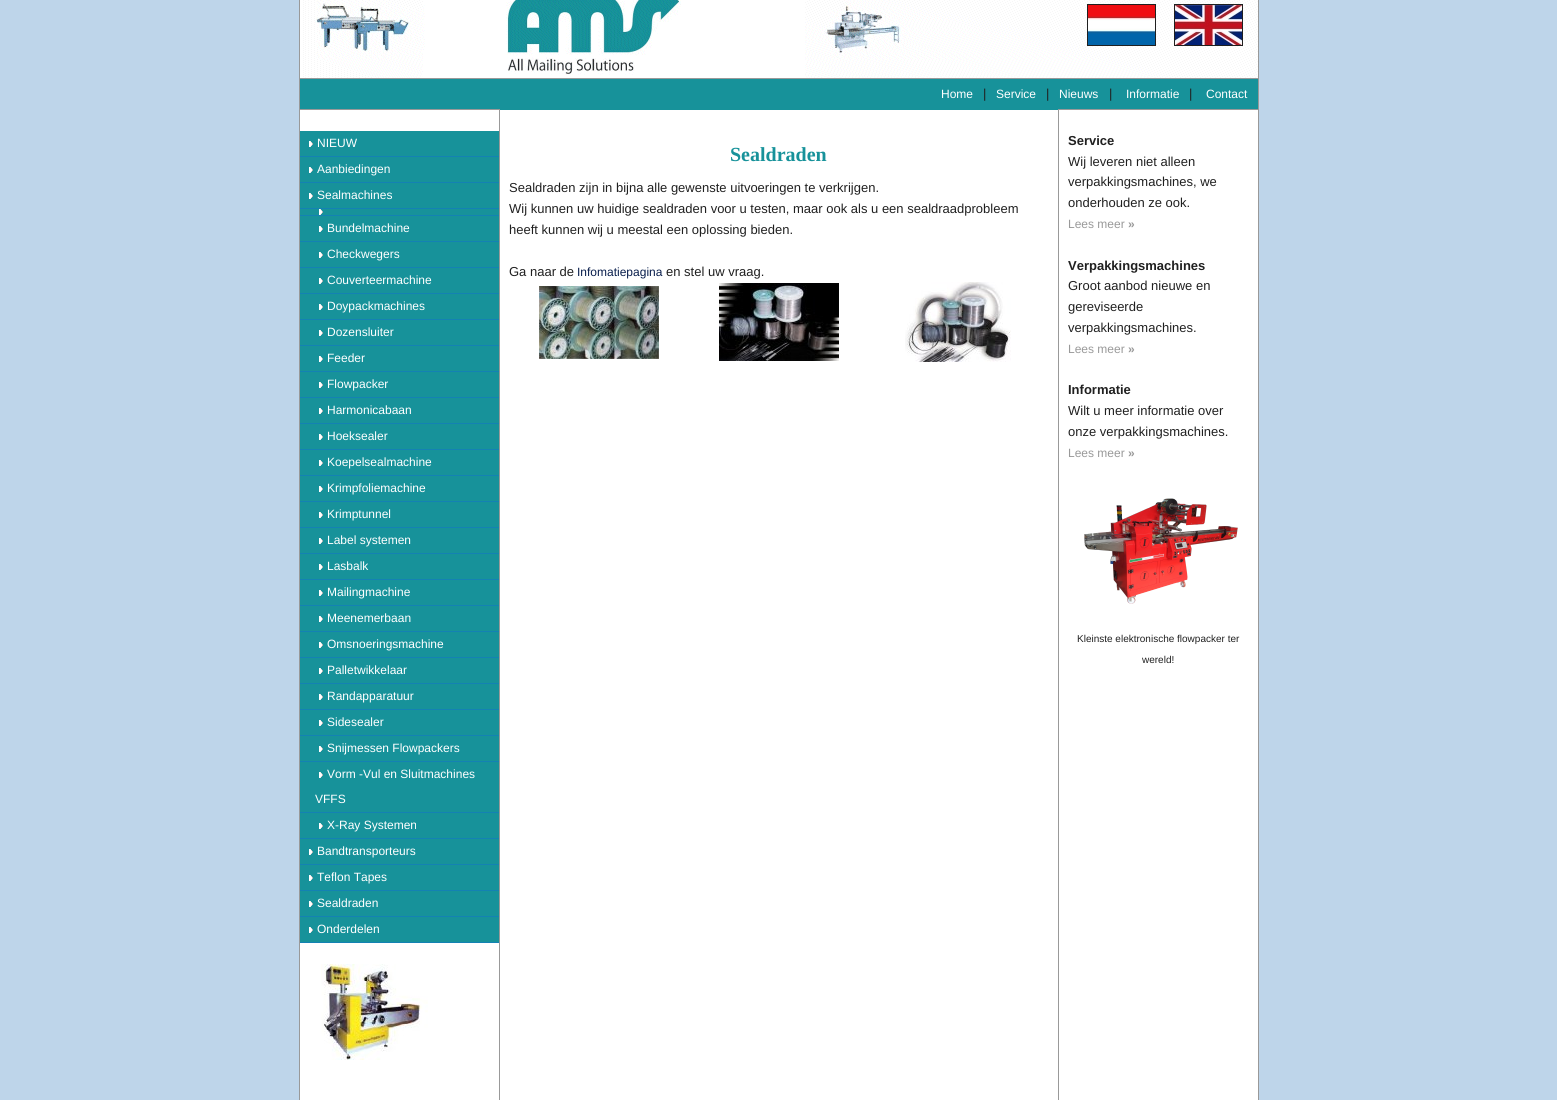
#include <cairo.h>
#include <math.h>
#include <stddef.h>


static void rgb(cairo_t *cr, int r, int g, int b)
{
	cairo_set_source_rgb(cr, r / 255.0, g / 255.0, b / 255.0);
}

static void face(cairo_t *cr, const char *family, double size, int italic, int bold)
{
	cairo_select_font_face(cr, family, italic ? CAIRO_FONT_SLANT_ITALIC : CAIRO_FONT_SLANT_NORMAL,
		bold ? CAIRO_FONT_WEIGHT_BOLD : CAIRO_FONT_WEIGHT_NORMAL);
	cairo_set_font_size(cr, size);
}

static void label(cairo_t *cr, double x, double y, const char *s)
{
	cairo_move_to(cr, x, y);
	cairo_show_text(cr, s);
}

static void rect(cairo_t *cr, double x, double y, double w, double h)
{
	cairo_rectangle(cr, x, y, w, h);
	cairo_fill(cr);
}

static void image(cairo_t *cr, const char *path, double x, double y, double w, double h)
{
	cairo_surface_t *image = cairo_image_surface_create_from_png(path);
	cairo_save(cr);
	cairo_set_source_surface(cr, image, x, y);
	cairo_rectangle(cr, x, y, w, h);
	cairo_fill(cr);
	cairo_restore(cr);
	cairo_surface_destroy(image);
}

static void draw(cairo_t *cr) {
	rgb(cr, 190, 213, 234);
	cairo_paint(cr);
	rgb(cr, 153, 153, 153);
	rect(cr, 299, 0, 1, 109);
	image(cr, "image0.png", 300, 0, 958, 78);
	cairo_rectangle(cr, 1087.5, 4.5, 68, 41);
	rgb(cr, 32, 32, 32);
	cairo_set_line_width(cr, 1);
	cairo_stroke(cr);
	cairo_rectangle(cr, 1174.5, 4.5, 68, 41);
	cairo_stroke(cr);
	image(cr, "image1.png", 1088, 5, 67, 40);
	image(cr, "image2.png", 1175, 5, 67, 40);
	rgb(cr, 153, 153, 153);
	rect(cr, 1258, 0, 1, 78);
	rect(cr, 300, 78, 959, 1);
	rgb(cr, 23, 146, 154);
	rect(cr, 300, 79, 958, 30);
	face(cr, "Liberation Sans", 12, 0, 0);
	rgb(cr, 255, 255, 255);
	label(cr, 941, 98, "Home");
	face(cr, "Liberation Sans", 13, 0, 0);
	rgb(cr, 32, 32, 32);
	label(cr, 983, 98, "|");
	face(cr, "Liberation Sans", 12, 0, 0);
	rgb(cr, 255, 255, 255);
	label(cr, 996, 98, "Service");
	face(cr, "Liberation Sans", 13, 0, 0);
	rgb(cr, 32, 32, 32);
	label(cr, 1046, 98, "|");
	face(cr, "Liberation Sans", 12, 0, 0);
	rgb(cr, 255, 255, 255);
	label(cr, 1059, 98, "Nieuws");
	face(cr, "Liberation Sans", 13, 0, 0);
	rgb(cr, 32, 32, 32);
	label(cr, 1109, 98, "|");
	face(cr, "Liberation Sans", 12, 0, 0);
	rgb(cr, 255, 255, 255);
	label(cr, 1126, 98, "Informatie");
	face(cr, "Liberation Sans", 13, 0, 0);
	rgb(cr, 32, 32, 32);
	label(cr, 1189, 98, "|");
	face(cr, "Liberation Sans", 12, 0, 0);
	rgb(cr, 255, 255, 255);
	label(cr, 1206, 98, "Contact");
	rgb(cr, 153, 153, 153);
	rect(cr, 1258, 79, 1, 30);
	rect(cr, 299, 109, 201, 1);
	rgb(cr, 23, 146, 154);
	rect(cr, 500, 109, 558, 1);
	rgb(cr, 153, 153, 153);
	rect(cr, 1058, 109, 201, 1);
	rect(cr, 299, 110, 1, 990);
	rgb(cr, 255, 255, 255);
	rect(cr, 300, 110, 199, 990);
	rgb(cr, 23, 146, 154);
	rect(cr, 300, 131, 199, 25);
	rgb(cr, 20, 130, 179);
	rect(cr, 300, 156, 199, 1);
	image(cr, "image3.png", 309, 141, 4, 6);
	rgb(cr, 255, 255, 255);
	label(cr, 317, 147, "NIEUW");
	rgb(cr, 23, 146, 154);
	rect(cr, 300, 157, 199, 25);
	rgb(cr, 20, 130, 179);
	rect(cr, 300, 182, 199, 1);
	image(cr, "image3.png", 309, 167, 4, 6);
	rgb(cr, 255, 255, 255);
	label(cr, 317, 173, "Aanbiedingen");
	rgb(cr, 23, 146, 154);
	rect(cr, 300, 183, 199, 25);
	rgb(cr, 20, 130, 179);
	rect(cr, 300, 208, 199, 1);
	image(cr, "image3.png", 309, 193, 4, 6);
	rgb(cr, 255, 255, 255);
	label(cr, 317, 199, "Sealmachines");
	rgb(cr, 23, 146, 154);
	rect(cr, 300, 209, 199, 6);
	rgb(cr, 20, 130, 179);
	rect(cr, 300, 215, 199, 1);
	image(cr, "image3.png", 319, 209, 4, 6);
	rgb(cr, 23, 146, 154);
	rect(cr, 300, 216, 199, 25);
	rgb(cr, 20, 130, 179);
	rect(cr, 300, 241, 199, 1);
	image(cr, "image3.png", 319, 226, 4, 6);
	rgb(cr, 255, 255, 255);
	label(cr, 327, 232, "Bundelmachine");
	rgb(cr, 23, 146, 154);
	rect(cr, 300, 242, 199, 25);
	rgb(cr, 20, 130, 179);
	rect(cr, 300, 267, 199, 1);
	image(cr, "image3.png", 319, 252, 4, 6);
	rgb(cr, 255, 255, 255);
	label(cr, 327, 258, "Checkwegers");
	rgb(cr, 23, 146, 154);
	rect(cr, 300, 268, 199, 25);
	rgb(cr, 20, 130, 179);
	rect(cr, 300, 293, 199, 1);
	image(cr, "image3.png", 319, 278, 4, 6);
	rgb(cr, 255, 255, 255);
	label(cr, 327, 284, "Couverteermachine");
	rgb(cr, 23, 146, 154);
	rect(cr, 300, 294, 199, 25);
	rgb(cr, 20, 130, 179);
	rect(cr, 300, 319, 199, 1);
	image(cr, "image3.png", 319, 304, 4, 6);
	rgb(cr, 255, 255, 255);
	label(cr, 327, 310, "Doypackmachines");
	rgb(cr, 23, 146, 154);
	rect(cr, 300, 320, 199, 25);
	rgb(cr, 20, 130, 179);
	rect(cr, 300, 345, 199, 1);
	image(cr, "image3.png", 319, 330, 4, 6);
	rgb(cr, 255, 255, 255);
	label(cr, 327, 336, "Dozensluiter");
	rgb(cr, 23, 146, 154);
	rect(cr, 300, 346, 199, 25);
	rgb(cr, 20, 130, 179);
	rect(cr, 300, 371, 199, 1);
	image(cr, "image3.png", 319, 356, 4, 6);
	rgb(cr, 255, 255, 255);
	label(cr, 327, 362, "Feeder");
	rgb(cr, 23, 146, 154);
	rect(cr, 300, 372, 199, 25);
	rgb(cr, 20, 130, 179);
	rect(cr, 300, 397, 199, 1);
	image(cr, "image3.png", 319, 382, 4, 6);
	rgb(cr, 255, 255, 255);
	label(cr, 327, 388, "Flowpacker");
	rgb(cr, 23, 146, 154);
	rect(cr, 300, 398, 199, 25);
	rgb(cr, 20, 130, 179);
	rect(cr, 300, 423, 199, 1);
	image(cr, "image3.png", 319, 408, 4, 6);
	rgb(cr, 255, 255, 255);
	label(cr, 327, 414, "Harmonicabaan");
	rgb(cr, 23, 146, 154);
	rect(cr, 300, 424, 199, 25);
	rgb(cr, 20, 130, 179);
	rect(cr, 300, 449, 199, 1);
	image(cr, "image3.png", 319, 434, 4, 6);
	rgb(cr, 255, 255, 255);
	label(cr, 327, 440, "Hoeksealer");
	rgb(cr, 23, 146, 154);
	rect(cr, 300, 450, 199, 25);
	rgb(cr, 20, 130, 179);
	rect(cr, 300, 475, 199, 1);
	image(cr, "image3.png", 319, 460, 4, 6);
	rgb(cr, 255, 255, 255);
	label(cr, 327, 466, "Koepelsealmachine");
	rgb(cr, 23, 146, 154);
	rect(cr, 300, 476, 199, 25);
	rgb(cr, 20, 130, 179);
	rect(cr, 300, 501, 199, 1);
	image(cr, "image3.png", 319, 486, 4, 6);
	rgb(cr, 255, 255, 255);
	label(cr, 327, 492, "Krimpfoliemachine");
	rgb(cr, 23, 146, 154);
	rect(cr, 300, 502, 199, 25);
	rgb(cr, 20, 130, 179);
	rect(cr, 300, 527, 199, 1);
	image(cr, "image3.png", 319, 512, 4, 6);
	rgb(cr, 255, 255, 255);
	label(cr, 327, 518, "Krimptunnel");
	rgb(cr, 23, 146, 154);
	rect(cr, 300, 528, 199, 25);
	rgb(cr, 20, 130, 179);
	rect(cr, 300, 553, 199, 1);
	image(cr, "image3.png", 319, 538, 4, 6);
	rgb(cr, 255, 255, 255);
	label(cr, 327, 544, "Label systemen");
	rgb(cr, 23, 146, 154);
	rect(cr, 300, 554, 199, 25);
	rgb(cr, 20, 130, 179);
	rect(cr, 300, 579, 199, 1);
	image(cr, "image3.png", 319, 564, 4, 6);
	rgb(cr, 255, 255, 255);
	label(cr, 327, 570, "Lasbalk");
	rgb(cr, 23, 146, 154);
	rect(cr, 300, 580, 199, 25);
	rgb(cr, 20, 130, 179);
	rect(cr, 300, 605, 199, 1);
	image(cr, "image3.png", 319, 590, 4, 6);
	rgb(cr, 255, 255, 255);
	label(cr, 327, 596, "Mailingmachine");
	rgb(cr, 23, 146, 154);
	rect(cr, 300, 606, 199, 25);
	rgb(cr, 20, 130, 179);
	rect(cr, 300, 631, 199, 1);
	image(cr, "image3.png", 319, 616, 4, 6);
	rgb(cr, 255, 255, 255);
	label(cr, 327, 622, "Meenemerbaan");
	rgb(cr, 23, 146, 154);
	rect(cr, 300, 632, 199, 25);
	rgb(cr, 20, 130, 179);
	rect(cr, 300, 657, 199, 1);
	image(cr, "image3.png", 319, 642, 4, 6);
	rgb(cr, 255, 255, 255);
	label(cr, 327, 648, "Omsnoeringsmachine");
	rgb(cr, 23, 146, 154);
	rect(cr, 300, 658, 199, 25);
	rgb(cr, 20, 130, 179);
	rect(cr, 300, 683, 199, 1);
	image(cr, "image3.png", 319, 668, 4, 6);
	rgb(cr, 255, 255, 255);
	label(cr, 327, 674, "Palletwikkelaar");
	rgb(cr, 23, 146, 154);
	rect(cr, 300, 684, 199, 25);
	rgb(cr, 20, 130, 179);
	rect(cr, 300, 709, 199, 1);
	image(cr, "image3.png", 319, 694, 4, 6);
	rgb(cr, 255, 255, 255);
	label(cr, 327, 700, "Randapparatuur");
	rgb(cr, 23, 146, 154);
	rect(cr, 300, 710, 199, 25);
	rgb(cr, 20, 130, 179);
	rect(cr, 300, 735, 199, 1);
	image(cr, "image3.png", 319, 720, 4, 6);
	rgb(cr, 255, 255, 255);
	label(cr, 327, 726, "Sidesealer");
	rgb(cr, 23, 146, 154);
	rect(cr, 300, 736, 199, 25);
	rgb(cr, 20, 130, 179);
	rect(cr, 300, 761, 199, 1);
	image(cr, "image3.png", 319, 746, 4, 6);
	rgb(cr, 255, 255, 255);
	label(cr, 327, 752, "Snijmessen Flowpackers");
	rgb(cr, 23, 146, 154);
	rect(cr, 300, 762, 199, 50);
	rgb(cr, 20, 130, 179);
	rect(cr, 300, 812, 199, 1);
	image(cr, "image3.png", 319, 772, 4, 6);
	rgb(cr, 255, 255, 255);
	label(cr, 327, 778, "Vorm -Vul en Sluitmachines");
	label(cr, 315, 803, "VFFS");
	rgb(cr, 23, 146, 154);
	rect(cr, 300, 813, 199, 25);
	rgb(cr, 20, 130, 179);
	rect(cr, 300, 838, 199, 1);
	image(cr, "image3.png", 319, 823, 4, 6);
	rgb(cr, 255, 255, 255);
	label(cr, 327, 829, "X-Ray Systemen");
	rgb(cr, 23, 146, 154);
	rect(cr, 300, 839, 199, 25);
	rgb(cr, 20, 130, 179);
	rect(cr, 300, 864, 199, 1);
	image(cr, "image3.png", 309, 849, 4, 6);
	rgb(cr, 255, 255, 255);
	label(cr, 317, 855, "Bandtransporteurs");
	rgb(cr, 23, 146, 154);
	rect(cr, 300, 865, 199, 25);
	rgb(cr, 20, 130, 179);
	rect(cr, 300, 890, 199, 1);
	image(cr, "image3.png", 309, 875, 4, 6);
	rgb(cr, 255, 255, 255);
	label(cr, 317, 881, "Teflon Tapes");
	rgb(cr, 23, 146, 154);
	rect(cr, 300, 891, 199, 25);
	rgb(cr, 20, 130, 179);
	rect(cr, 300, 916, 199, 1);
	image(cr, "image3.png", 309, 901, 4, 6);
	rgb(cr, 255, 255, 255);
	label(cr, 317, 907, "Sealdraden");
	rgb(cr, 23, 146, 154);
	rect(cr, 300, 917, 199, 25);
	rgb(cr, 20, 130, 179);
	rect(cr, 300, 942, 199, 1);
	image(cr, "image3.png", 309, 927, 4, 6);
	rgb(cr, 255, 255, 255);
	label(cr, 317, 933, "Onderdelen");
	image(cr, "image4.png", 321, 964, 107, 96);
	rgb(cr, 153, 153, 153);
	rect(cr, 499, 110, 1, 990);
	rgb(cr, 255, 255, 255);
	rect(cr, 500, 110, 558, 990);
	face(cr, "Liberation Serif", 20, 0, 1);
	rgb(cr, 23, 146, 154);
	label(cr, 730, 161, "Sealdraden");
	face(cr, "Liberation Sans", 13, 0, 0);
	rgb(cr, 32, 32, 32);
	label(cr, 509, 192, "Sealdraden zijn in bijna alle gewenste uitvoeringen te verkrijgen.");
	label(cr, 509, 213, "Wij kunnen uw huidige sealdraden voor u testen, maar ook als u een sealdraadprobleem");
	label(cr, 509, 234, "heeft kunnen wij u meestal een oplossing bieden.");
	label(cr, 509, 276, "Ga naar de");
	face(cr, "Liberation Sans", 12, 0, 0);
	rgb(cr, 9, 30, 76);
	label(cr, 577, 276, "Infomatiepagina");
	face(cr, "Liberation Sans", 13, 0, 0);
	rgb(cr, 32, 32, 32);
	label(cr, 666, 276, "en stel uw vraag.");
	image(cr, "image5.png", 539, 286, 120, 73);
	image(cr, "image6.png", 719, 283, 120, 78);
	image(cr, "image7.png", 905, 282, 106, 80);
	rgb(cr, 153, 153, 153);
	rect(cr, 1058, 110, 1, 990);
	rgb(cr, 255, 255, 255);
	rect(cr, 1059, 110, 199, 990);
	face(cr, "Liberation Sans", 13, 0, 1);
	rgb(cr, 32, 32, 32);
	label(cr, 1068, 145, "Service");
	face(cr, "Liberation Sans", 13, 0, 0);
	label(cr, 1068, 166, "Wij leveren niet alleen");
	label(cr, 1068, 186, "verpakkingsmachines, we");
	label(cr, 1068, 207, "onderhouden ze ook.");
	face(cr, "Liberation Sans", 12, 0, 0);
	rgb(cr, 153, 153, 153);
	label(cr, 1068, 228, "Lees meer");
	face(cr, "Liberation Sans", 12, 0, 1);
	label(cr, 1128, 228, "»");
	face(cr, "Liberation Sans", 13, 0, 1);
	rgb(cr, 32, 32, 32);
	label(cr, 1068, 270, "Verpakkingsmachines");
	face(cr, "Liberation Sans", 13, 0, 0);
	label(cr, 1068, 290, "Groot aanbod nieuwe en");
	label(cr, 1068, 311, "gereviseerde");
	label(cr, 1068, 332, "verpakkingsmachines.");
	face(cr, "Liberation Sans", 12, 0, 0);
	rgb(cr, 153, 153, 153);
	label(cr, 1068, 353, "Lees meer");
	face(cr, "Liberation Sans", 12, 0, 1);
	label(cr, 1128, 353, "»");
	face(cr, "Liberation Sans", 13, 0, 1);
	rgb(cr, 32, 32, 32);
	label(cr, 1068, 394, "Informatie");
	face(cr, "Liberation Sans", 13, 0, 0);
	label(cr, 1068, 415, "Wilt u meer informatie over");
	label(cr, 1068, 436, "onze verpakkingsmachines.");
	face(cr, "Liberation Sans", 12, 0, 0);
	rgb(cr, 153, 153, 153);
	label(cr, 1068, 457, "Lees meer");
	face(cr, "Liberation Sans", 12, 0, 1);
	label(cr, 1128, 457, "»");
	image(cr, "image8.png", 1084, 498, 154, 106);
	face(cr, "Liberation Sans", 10, 0, 0);
	rgb(cr, 32, 32, 32);
	label(cr, 1077, 642, "Kleinste elektronische flowpacker ter");
	label(cr, 1142, 663, "wereld!");
	rgb(cr, 153, 153, 153);
	rect(cr, 1258, 110, 1, 990);
}

int main(void) {
	cairo_surface_t *surface = cairo_image_surface_create(CAIRO_FORMAT_RGB24, 1557, 1100);
	cairo_t *cr = cairo_create(surface);
	cairo_font_options_t *options = cairo_font_options_create();
	cairo_font_options_set_hint_metrics(options, CAIRO_HINT_METRICS_OFF);
	cairo_font_options_set_hint_style(options, CAIRO_HINT_STYLE_NONE);
	cairo_set_font_options(cr, options);
	cairo_set_miter_limit(cr, 4);
	draw(cr);
	cairo_surface_write_to_png(surface, "render.png");
	cairo_font_options_destroy(options);
	cairo_destroy(cr);
	cairo_surface_destroy(surface);
	return 0;
}
